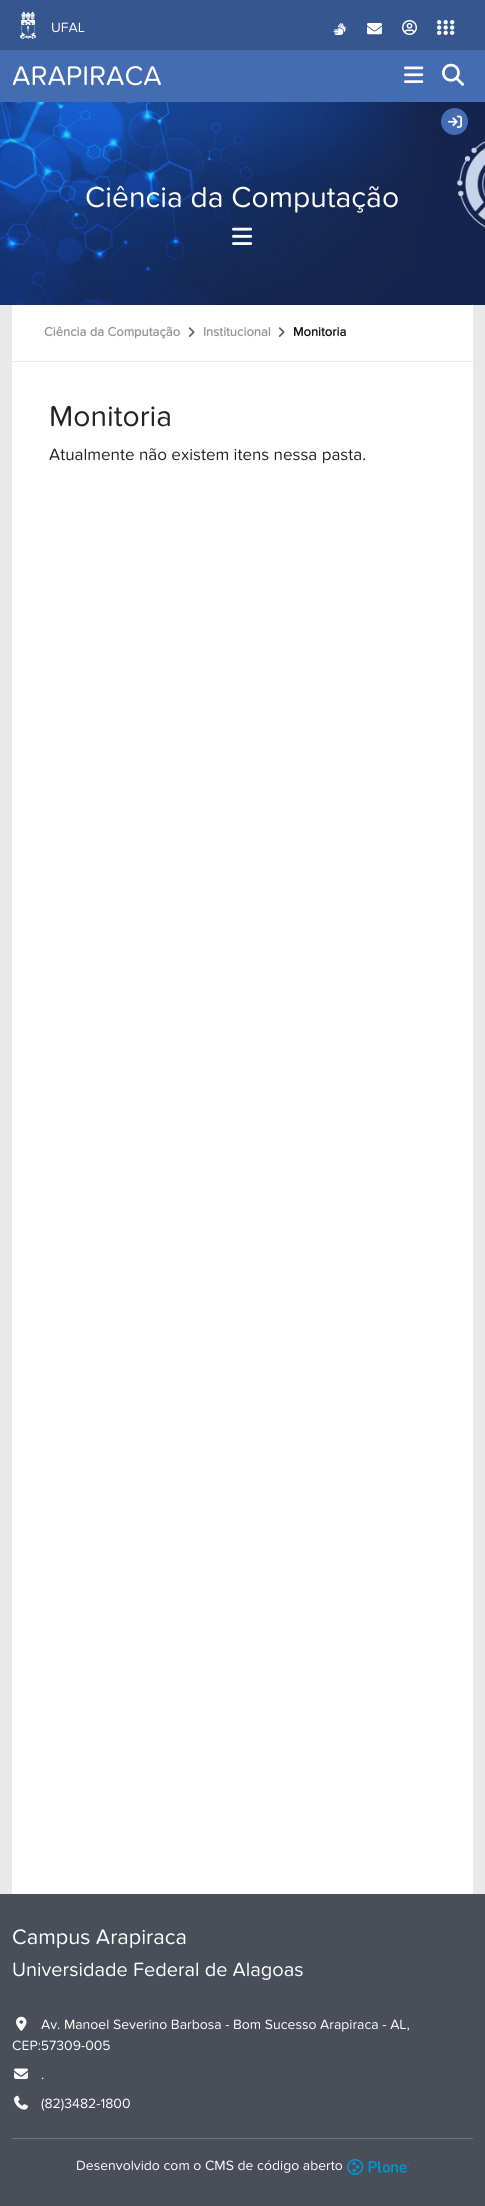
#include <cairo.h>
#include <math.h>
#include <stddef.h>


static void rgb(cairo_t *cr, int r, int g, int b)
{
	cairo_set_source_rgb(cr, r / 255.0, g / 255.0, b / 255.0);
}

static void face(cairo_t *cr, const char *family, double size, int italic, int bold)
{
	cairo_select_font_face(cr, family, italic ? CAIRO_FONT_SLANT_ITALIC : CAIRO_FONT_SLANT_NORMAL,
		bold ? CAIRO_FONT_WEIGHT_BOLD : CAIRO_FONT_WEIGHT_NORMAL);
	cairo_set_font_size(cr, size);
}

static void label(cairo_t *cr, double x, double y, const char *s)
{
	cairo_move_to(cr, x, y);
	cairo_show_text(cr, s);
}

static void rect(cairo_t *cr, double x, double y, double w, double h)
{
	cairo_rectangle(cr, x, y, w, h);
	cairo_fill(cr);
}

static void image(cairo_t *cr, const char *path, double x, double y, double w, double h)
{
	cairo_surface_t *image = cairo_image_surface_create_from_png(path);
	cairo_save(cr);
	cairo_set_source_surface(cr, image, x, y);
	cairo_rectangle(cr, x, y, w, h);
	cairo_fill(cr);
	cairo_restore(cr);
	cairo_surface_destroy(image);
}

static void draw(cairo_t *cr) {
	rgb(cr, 233, 233, 233);
	cairo_paint(cr);
	rgb(cr, 54, 86, 143);
	rect(cr, 0, 0, 485, 50);
	image(cr, "image0.png", 20, 11, 16, 28);
	face(cr, "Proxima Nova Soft", 14, 0, 0);
	rgb(cr, 255, 255, 255);
	label(cr, 51, 32, "UFAL");
	image(cr, "image1.png", 333, 23, 13, 12);
	image(cr, "image2.png", 367, 23, 15, 12);
	image(cr, "image3.png", 402, 20, 15, 15);
	image(cr, "image4.png", 437, 20, 18, 15);
	rgb(cr, 68, 108, 179);
	rect(cr, 0, 50, 485, 52);
	face(cr, "Proxima Nova Soft", 28, 0, 0);
	rgb(cr, 255, 255, 255);
	label(cr, 12, 85, "ARAPIRACA");
	image(cr, "image5.png", 404, 66, 20, 17);
	image(cr, "image6.png", 442, 63, 22, 23);
	image(cr, "image7.png", 0, 102, 485, 203);
	rgb(cr, 68, 108, 179);
	cairo_arc(cr, 454.5, 121.5, 13.5, 0, 2 * M_PI);
	cairo_fill(cr);
	image(cr, "image8.png", 448, 115, 14, 13);
	face(cr, "Proxima Nova Soft", 30, 0, 0);
	rgb(cr, 255, 255, 255);
	label(cr, 85, 207, "Ciência da Computação");
	image(cr, "image9.png", 232, 227, 21, 18);
	rect(cr, 12, 305, 461, 1589);
	rgb(cr, 233, 233, 233);
	rect(cr, 12, 361, 461, 1);
	face(cr, "Proxima Nova Soft", 13, 0, 1);
	rgb(cr, 152, 152, 152);
	label(cr, 44, 336, "Ciência da Computação");
	image(cr, "image10.png", 188, 327, 7, 10);
	label(cr, 203, 336, "Institucional");
	image(cr, "image10.png", 278, 327, 7, 10);
	rgb(cr, 21, 21, 21);
	label(cr, 293, 336, "Monitoria");
	face(cr, "Proxima Nova Soft", 30, 0, 0);
	rgb(cr, 33, 37, 41);
	label(cr, 49, 426, "Monitoria");
	face(cr, "Proxima Nova Soft", 17, 0, 0);
	label(cr, 49, 460, "Atualmente não existem itens nessa pasta.");
	rgb(cr, 74, 78, 88);
	rect(cr, 0, 1894, 485, 312);
	face(cr, "Proxima Nova Soft", 21.75, 0, 0);
	rgb(cr, 255, 255, 255);
	label(cr, 12, 1944, "Campus Arapiraca");
	face(cr, "Proxima Nova Soft", 20, 0, 0);
	label(cr, 12, 1976, "Universidade Federal de Alagoas");
	image(cr, "image11.png", 16, 2016, 11, 15);
	face(cr, "Proxima Nova Soft", 14, 0, 0);
	label(cr, 41, 2029, "Av. Manoel Severino Barbosa - Bom Sucesso Arapiraca - AL,");
	label(cr, 12, 2050, "CEP:57309-005");
	image(cr, "image12.png", 14, 2068, 14, 11);
	label(cr, 41, 2079, ".");
	image(cr, "image13.png", 14, 2095, 14, 15);
	label(cr, 41, 2108, "(82)3482-1800");
	rgb(cr, 108, 117, 125);
	rect(cr, 12, 2138, 461, 1);
	rgb(cr, 255, 255, 255);
	label(cr, 76, 2170, "Desenvolvido com o CMS de código aberto");
	image(cr, "image14.png", 347, 2159, 62, 16);
}

int main(void) {
	cairo_surface_t *surface = cairo_image_surface_create(CAIRO_FORMAT_RGB24, 485, 2206);
	cairo_t *cr = cairo_create(surface);
	cairo_font_options_t *options = cairo_font_options_create();
	cairo_font_options_set_hint_metrics(options, CAIRO_HINT_METRICS_OFF);
	cairo_font_options_set_hint_style(options, CAIRO_HINT_STYLE_NONE);
	cairo_set_font_options(cr, options);
	cairo_set_miter_limit(cr, 4);
	draw(cr);
	cairo_surface_write_to_png(surface, "render.png");
	cairo_font_options_destroy(options);
	cairo_destroy(cr);
	cairo_surface_destroy(surface);
	return 0;
}
